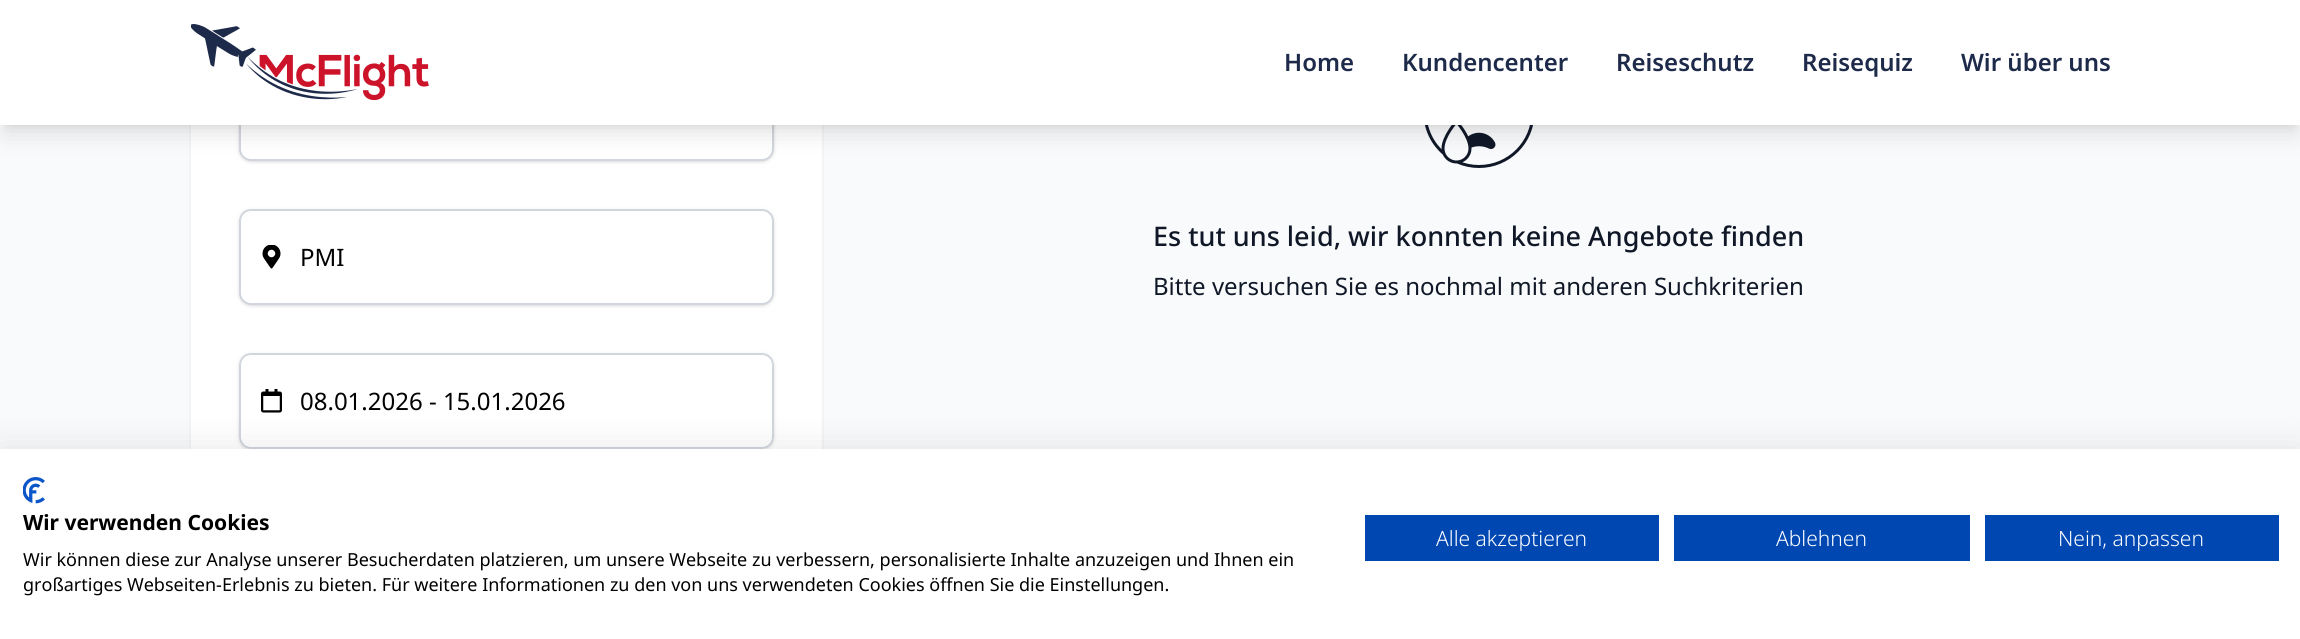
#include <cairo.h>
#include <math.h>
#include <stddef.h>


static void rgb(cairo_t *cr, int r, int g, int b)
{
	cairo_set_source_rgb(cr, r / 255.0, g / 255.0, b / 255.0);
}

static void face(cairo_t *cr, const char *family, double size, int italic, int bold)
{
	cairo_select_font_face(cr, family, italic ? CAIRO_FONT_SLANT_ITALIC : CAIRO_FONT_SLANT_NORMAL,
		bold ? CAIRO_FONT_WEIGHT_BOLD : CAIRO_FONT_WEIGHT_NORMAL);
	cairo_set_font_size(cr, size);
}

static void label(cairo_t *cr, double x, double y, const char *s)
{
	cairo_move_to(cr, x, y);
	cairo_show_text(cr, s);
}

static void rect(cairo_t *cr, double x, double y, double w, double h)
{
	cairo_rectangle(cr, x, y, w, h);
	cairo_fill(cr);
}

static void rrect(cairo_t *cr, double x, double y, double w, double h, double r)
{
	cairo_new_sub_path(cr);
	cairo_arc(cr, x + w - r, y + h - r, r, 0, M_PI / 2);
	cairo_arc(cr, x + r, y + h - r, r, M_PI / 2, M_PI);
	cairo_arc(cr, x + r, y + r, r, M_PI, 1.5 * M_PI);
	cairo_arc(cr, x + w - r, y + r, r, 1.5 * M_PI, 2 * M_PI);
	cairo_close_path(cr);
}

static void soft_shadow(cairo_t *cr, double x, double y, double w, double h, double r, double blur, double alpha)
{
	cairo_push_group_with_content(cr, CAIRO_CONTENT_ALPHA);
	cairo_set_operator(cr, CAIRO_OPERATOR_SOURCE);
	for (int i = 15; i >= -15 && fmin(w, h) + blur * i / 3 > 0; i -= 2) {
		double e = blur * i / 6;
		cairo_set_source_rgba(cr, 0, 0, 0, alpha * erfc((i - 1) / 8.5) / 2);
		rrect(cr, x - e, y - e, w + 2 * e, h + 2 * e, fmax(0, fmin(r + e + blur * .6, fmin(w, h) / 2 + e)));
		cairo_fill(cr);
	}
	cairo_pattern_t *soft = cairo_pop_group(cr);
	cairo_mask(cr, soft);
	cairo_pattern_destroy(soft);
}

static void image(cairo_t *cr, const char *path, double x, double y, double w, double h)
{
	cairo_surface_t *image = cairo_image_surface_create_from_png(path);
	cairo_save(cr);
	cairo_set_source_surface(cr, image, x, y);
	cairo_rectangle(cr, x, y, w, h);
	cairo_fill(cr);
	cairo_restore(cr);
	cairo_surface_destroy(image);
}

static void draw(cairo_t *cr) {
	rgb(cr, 249, 250, 251);
	cairo_paint(cr);
	cairo_rectangle(cr, 190, -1, 633, 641);
	rgb(cr, 243, 244, 246);
	cairo_stroke(cr);
	rgb(cr, 255, 255, 255);
	rect(cr, 191, 125, 631, 324);
	rgb(cr, 0, 0, 0);
	soft_shadow(cr, 240, 68, 533, 93, 11, 1.5, 0.1);
	soft_shadow(cr, 239, 66, 535, 96, 12, 2, 0.1);
	rgb(cr, 255, 255, 255);
	rrect(cr, 240, 66, 533, 94, 11);
	cairo_fill_preserve(cr);
	rgb(cr, 209, 213, 220);
	cairo_stroke(cr);
	image(cr, "image3.png", 1425, 125, 108, 43);
	rgb(cr, 0, 0, 0);
	soft_shadow(cr, 6, 12, 2289, 113, 0, 4.5, 0.1);
	soft_shadow(cr, 5, 20, 2292, 115, 0, 11, 0.1);
	rgb(cr, 255, 255, 255);
	rect(cr, 0, 0, 2300, 125);
	image(cr, "image0.png", 191, 24, 238, 77);
	face(cr, "Noto Sans SemiBold", 24, 0, 0);
	rgb(cr, 30, 42, 74);
	label(cr, 1284, 71, "Home");
	label(cr, 1402, 71, "Kundencenter");
	label(cr, 1616, 71, "Reiseschutz");
	label(cr, 1802, 71, "Reisequiz");
	label(cr, 1961, 71, "Wir über uns");
	rgb(cr, 0, 0, 0);
	soft_shadow(cr, 240, 212, 533, 93, 11, 1.5, 0.1);
	soft_shadow(cr, 239, 210, 535, 96, 12, 2, 0.1);
	rgb(cr, 255, 255, 255);
	rrect(cr, 240, 210, 533, 94, 11);
	cairo_fill_preserve(cr);
	rgb(cr, 209, 213, 220);
	cairo_stroke(cr);
	image(cr, "image1.png", 262, 245, 19, 24);
	face(cr, "Noto Sans", 24, 0, 0);
	rgb(cr, 0, 0, 0);
	label(cr, 300, 266, "PMI");
	cairo_save(cr);
	cairo_set_fill_rule(cr, CAIRO_FILL_RULE_EVEN_ODD);
	cairo_new_path(cr);
	cairo_move_to(cr, 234, 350);
	cairo_line_to(cr, 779, 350);
	cairo_line_to(cr, 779, 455);
	cairo_line_to(cr, 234, 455);
	cairo_close_path(cr);
	cairo_move_to(cr, 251, 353);
	cairo_line_to(cr, 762, 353);
	cairo_curve_to(cr, 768.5, 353, 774, 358.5, 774, 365);
	cairo_line_to(cr, 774, 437);
	cairo_curve_to(cr, 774, 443.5, 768.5, 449, 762, 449);
	cairo_line_to(cr, 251, 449);
	cairo_curve_to(cr, 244.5, 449, 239, 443.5, 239, 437);
	cairo_line_to(cr, 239, 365);
	cairo_curve_to(cr, 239, 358.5, 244.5, 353, 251, 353);
	cairo_close_path(cr);
	cairo_clip(cr);
	rgb(cr, 0, 0, 0);
	soft_shadow(cr, 240, 356, 533, 93, 11, 1.5, 0.1);
	cairo_restore(cr);
	cairo_save(cr);
	cairo_set_fill_rule(cr, CAIRO_FILL_RULE_EVEN_ODD);
	cairo_new_path(cr);
	cairo_move_to(cr, 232, 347);
	cairo_line_to(cr, 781, 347);
	cairo_line_to(cr, 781, 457);
	cairo_line_to(cr, 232, 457);
	cairo_close_path(cr);
	cairo_move_to(cr, 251, 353);
	cairo_line_to(cr, 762, 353);
	cairo_curve_to(cr, 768.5, 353, 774, 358.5, 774, 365);
	cairo_line_to(cr, 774, 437);
	cairo_curve_to(cr, 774, 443.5, 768.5, 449, 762, 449);
	cairo_line_to(cr, 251, 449);
	cairo_curve_to(cr, 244.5, 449, 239, 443.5, 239, 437);
	cairo_line_to(cr, 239, 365);
	cairo_curve_to(cr, 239, 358.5, 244.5, 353, 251, 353);
	cairo_close_path(cr);
	cairo_clip(cr);
	rgb(cr, 0, 0, 0);
	soft_shadow(cr, 239, 354, 535, 96, 12, 2, 0.1);
	cairo_restore(cr);
	rrect(cr, 240, 354, 533, 94, 11);
	rgb(cr, 209, 213, 220);
	cairo_stroke(cr);
	image(cr, "image2.png", 261, 389, 21, 24);
	rgb(cr, 0, 0, 0);
	label(cr, 300, 410, "08.01.2026 - 15.01.2026");
	face(cr, "Noto Sans Medium", 27, 0, 0);
	rgb(cr, 16, 24, 40);
	label(cr, 1153, 246, "Es tut uns leid, wir konnten keine Angebote finden");
	face(cr, "Noto Sans", 24, 0, 0);
	label(cr, 1153, 295, "Bitte versuchen Sie es nochmal mit anderen Suchkriterien");
	rgb(cr, 0, 0, 0);
	soft_shadow(cr, 0, 449, 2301, 190, 0, 18, 0.1);
	rgb(cr, 255, 255, 255);
	rect(cr, 0, 449, 2300, 190);
	image(cr, "image4.png", 23, 477, 22, 27);
	face(cr, "Noto Sans", 21, 0, 1);
	rgb(cr, 0, 0, 0);
	label(cr, 23, 530, "Wir verwenden Cookies");
	face(cr, "Noto Sans", 18, 0, 0);
	label(cr, 23, 566, "Wir können diese zur Analyse unserer Besucherdaten platzieren, um unsere Webseite zu verbessern, personalisierte Inhalte anzuzeigen und Ihnen ein");
	label(cr, 23, 591, "großartiges Webseiten-Erlebnis zu bieten. Für weitere Informationen zu den von uns verwendeten Cookies öffnen Sie die Einstellungen.");
	rgb(cr, 0, 71, 178);
	rect(cr, 1365, 515, 294, 46);
	face(cr, "Noto Sans Light", 21, 0, 0);
	rgb(cr, 255, 255, 255);
	label(cr, 1436, 546, "Alle akzeptieren");
	rgb(cr, 0, 71, 178);
	rect(cr, 1674, 515, 296, 46);
	rgb(cr, 255, 255, 255);
	label(cr, 1776, 546, "Ablehnen");
	rgb(cr, 0, 71, 178);
	rect(cr, 1985, 515, 294, 46);
	rgb(cr, 255, 255, 255);
	label(cr, 2058, 546, "Nein, anpassen");
}

int main(void) {
	cairo_surface_t *surface = cairo_image_surface_create(CAIRO_FORMAT_RGB24, 2300, 639);
	cairo_t *cr = cairo_create(surface);
	cairo_font_options_t *options = cairo_font_options_create();
	cairo_font_options_set_hint_metrics(options, CAIRO_HINT_METRICS_OFF);
	cairo_font_options_set_hint_style(options, CAIRO_HINT_STYLE_NONE);
	cairo_set_font_options(cr, options);
	cairo_set_miter_limit(cr, 4);
	draw(cr);
	cairo_surface_write_to_png(surface, "render.png");
	cairo_font_options_destroy(options);
	cairo_destroy(cr);
	cairo_surface_destroy(surface);
	return 0;
}
